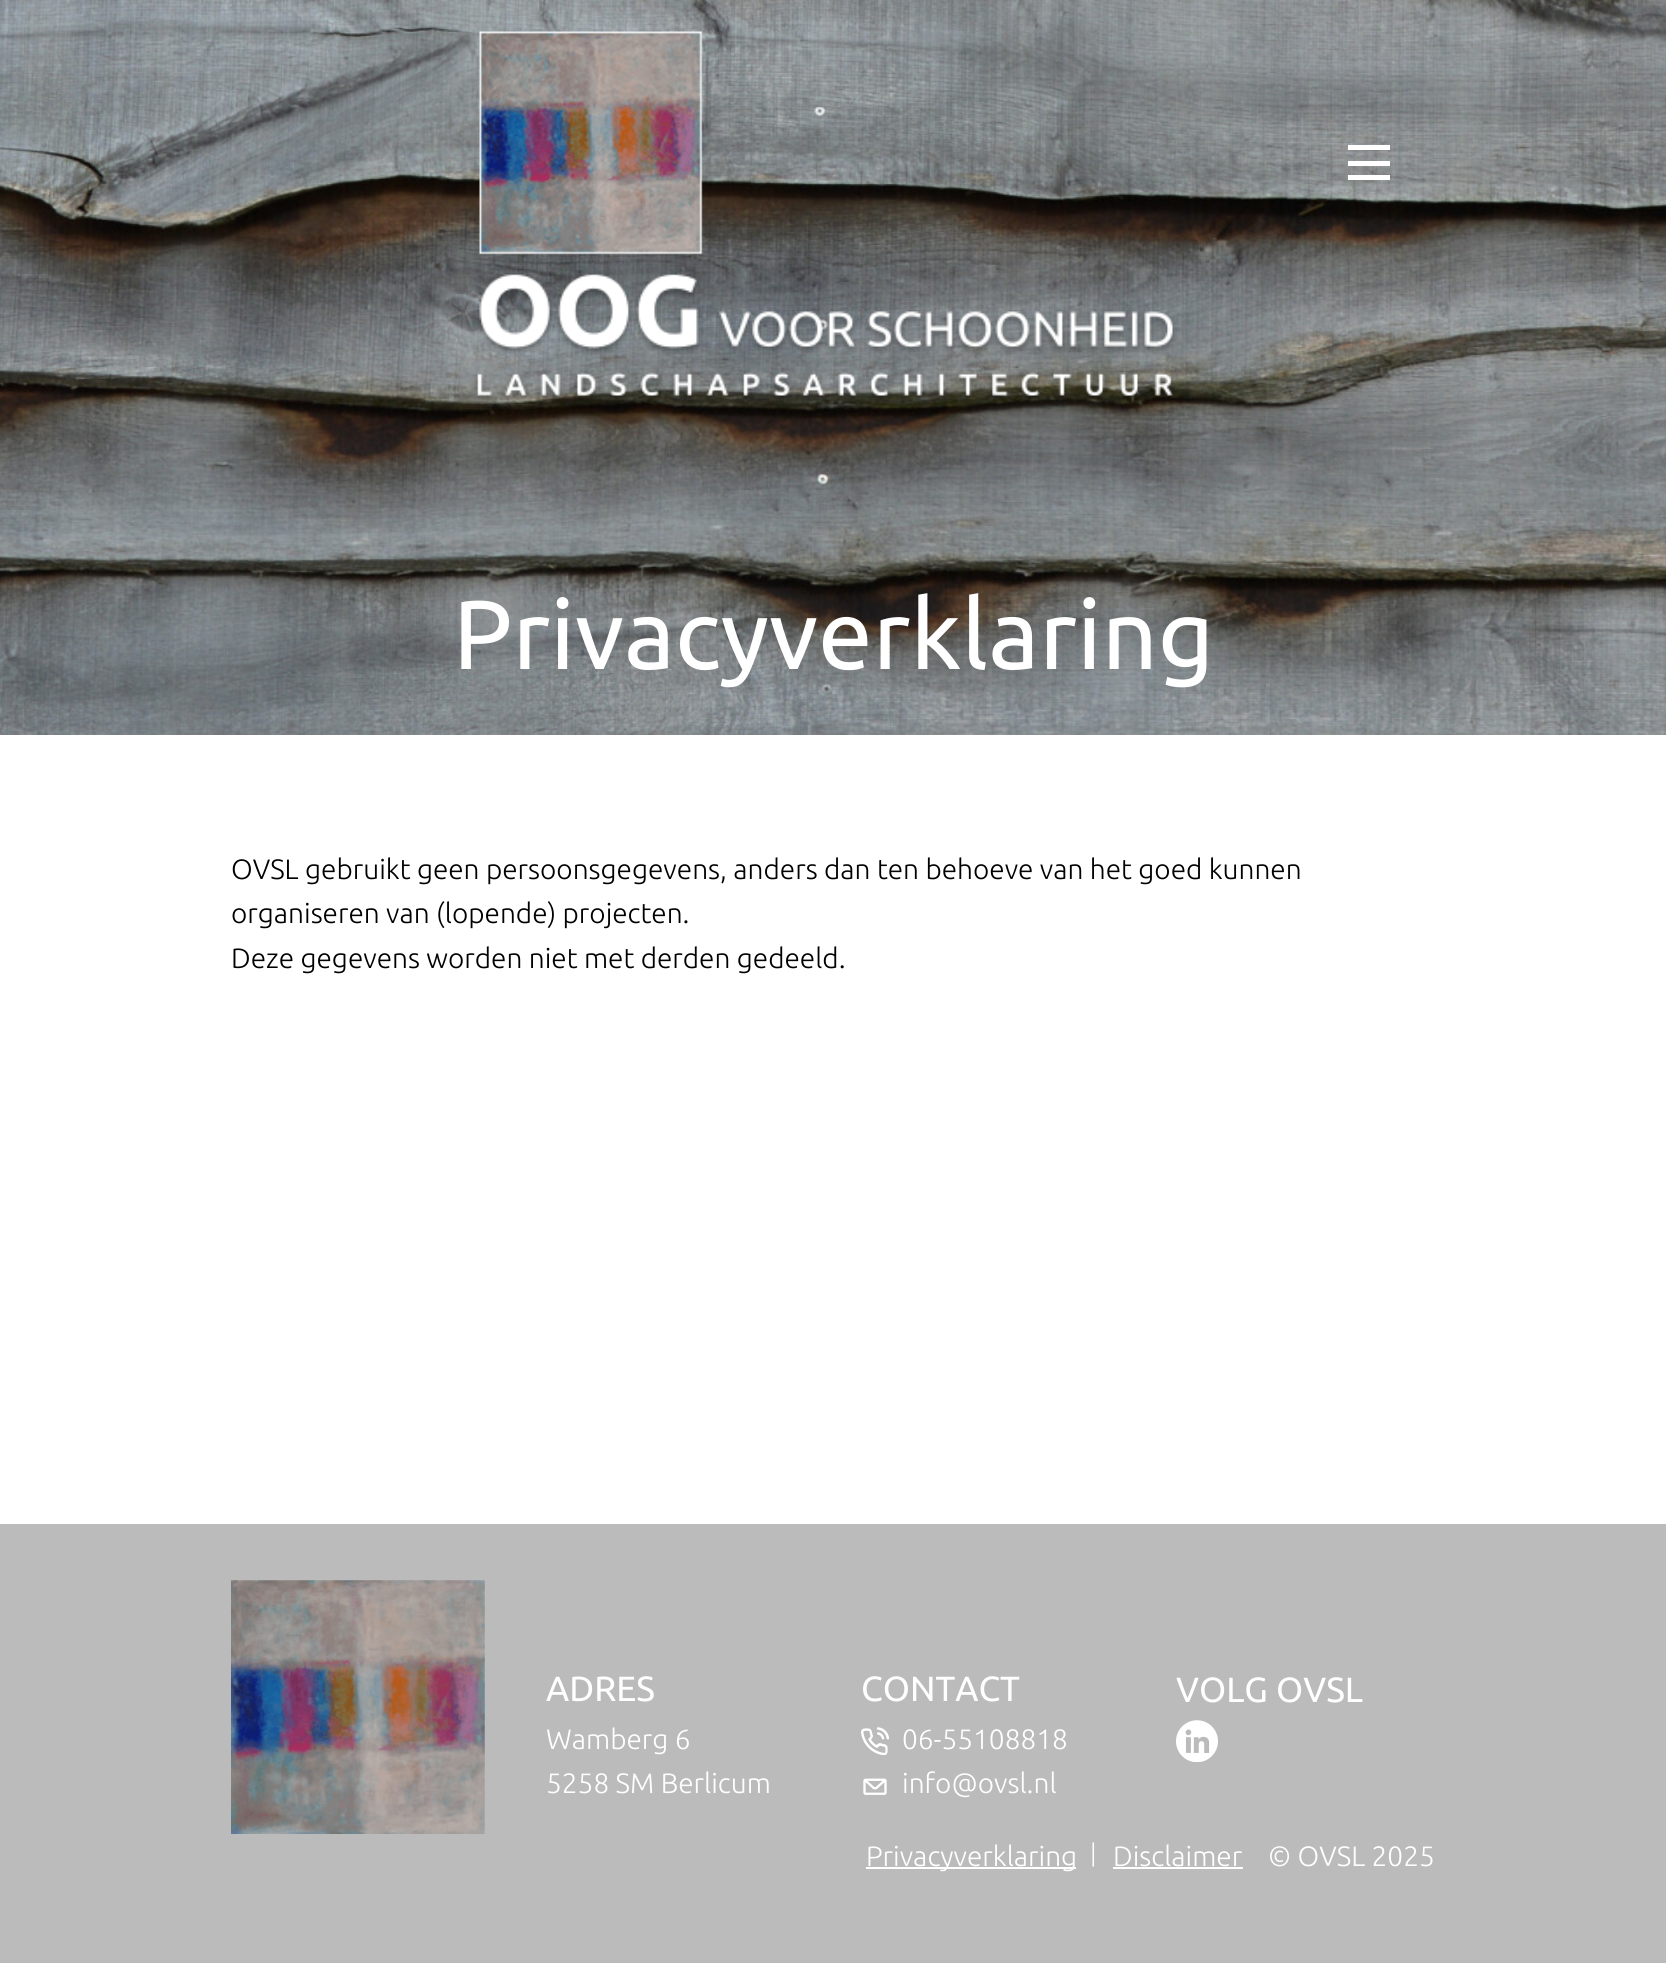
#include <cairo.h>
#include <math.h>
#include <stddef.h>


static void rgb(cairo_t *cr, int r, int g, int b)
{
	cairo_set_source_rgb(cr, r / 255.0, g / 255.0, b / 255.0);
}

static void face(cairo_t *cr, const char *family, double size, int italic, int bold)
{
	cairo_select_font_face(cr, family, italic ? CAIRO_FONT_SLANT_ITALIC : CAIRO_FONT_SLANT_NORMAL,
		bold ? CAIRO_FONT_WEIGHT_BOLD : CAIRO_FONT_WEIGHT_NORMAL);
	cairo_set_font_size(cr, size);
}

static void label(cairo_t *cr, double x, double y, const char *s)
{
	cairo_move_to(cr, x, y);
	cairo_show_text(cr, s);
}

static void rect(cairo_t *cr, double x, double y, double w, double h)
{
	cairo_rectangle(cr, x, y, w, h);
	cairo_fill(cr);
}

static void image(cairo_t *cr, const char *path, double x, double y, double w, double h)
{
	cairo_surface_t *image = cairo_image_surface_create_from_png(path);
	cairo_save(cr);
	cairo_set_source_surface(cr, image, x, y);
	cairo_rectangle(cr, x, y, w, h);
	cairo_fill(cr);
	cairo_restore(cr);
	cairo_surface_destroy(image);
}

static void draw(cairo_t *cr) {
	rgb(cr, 255, 255, 255);
	cairo_paint(cr);
	image(cr, "image1.png", 0, 0, 1666, 735);
	image(cr, "image0.png", 474, 31, 703, 371);
	rgb(cr, 255, 255, 255);
	rect(cr, 1348, 161, 42, 5);
	rect(cr, 1348, 145, 42, 5);
	rect(cr, 1348, 175, 42, 5);
	face(cr, "Ubuntu", 97.75, 0, 0);
	label(cr, 453, 669, "Privacyverklaring");
	face(cr, "Ubuntu Light", 28, 0, 0);
	rgb(cr, 0, 0, 0);
	label(cr, 231, 879, "OVSL gebruikt geen persoonsgegevens, anders dan ten behoeve van het goed kunnen");
	label(cr, 231, 923, "organiseren van (lopende) projecten.");
	label(cr, 231, 968, "Deze gegevens worden niet met derden gedeeld.");
	rgb(cr, 187, 187, 187);
	rect(cr, 0, 1524, 1666, 439);
	image(cr, "image2.png", 231, 1580, 254, 254);
	face(cr, "Ubuntu", 35, 0, 0);
	rgb(cr, 255, 255, 255);
	label(cr, 546, 1701, "ADRES");
	face(cr, "Ubuntu Light", 28, 0, 0);
	label(cr, 546, 1749, "Wamberg 6");
	label(cr, 546, 1793, "5258 SM Berlicum");
	face(cr, "Ubuntu", 35, 0, 0);
	label(cr, 861, 1701, "CONTACT");
	image(cr, "image3.png", 861, 1727, 28, 28);
	face(cr, "Ubuntu Light", 28, 0, 0);
	label(cr, 902, 1749, "06-55108818");
	image(cr, "image4.png", 863, 1778, 24, 17);
	label(cr, 902, 1793, "info@ovsl.nl");
	face(cr, "Ubuntu", 35, 0, 0);
	label(cr, 1176, 1702, "VOLG OVSL");
	image(cr, "image5.png", 1176, 1720, 42, 42);
	rect(cr, 866, 1867, 210, 2);
	face(cr, "Ubuntu Light", 28, 0, 0);
	label(cr, 866, 1866, "Privacyverklaring");
	face(cr, "Ubuntu Light", 25, 0, 0);
	label(cr, 1090, 1862, "|");
	face(cr, "Ubuntu Light", 28, 0, 0);
	label(cr, 1113, 1866, "Disclaimer");
	rect(cr, 1113, 1867, 130, 2);
	label(cr, 1268, 1866, "© OVSL 2025");
}

int main(void) {
	cairo_surface_t *surface = cairo_image_surface_create(CAIRO_FORMAT_RGB24, 1666, 1963);
	cairo_t *cr = cairo_create(surface);
	cairo_font_options_t *options = cairo_font_options_create();
	cairo_font_options_set_hint_metrics(options, CAIRO_HINT_METRICS_OFF);
	cairo_font_options_set_hint_style(options, CAIRO_HINT_STYLE_NONE);
	cairo_set_font_options(cr, options);
	cairo_set_miter_limit(cr, 4);
	draw(cr);
	cairo_surface_write_to_png(surface, "render.png");
	cairo_font_options_destroy(options);
	cairo_destroy(cr);
	cairo_surface_destroy(surface);
	return 0;
}
